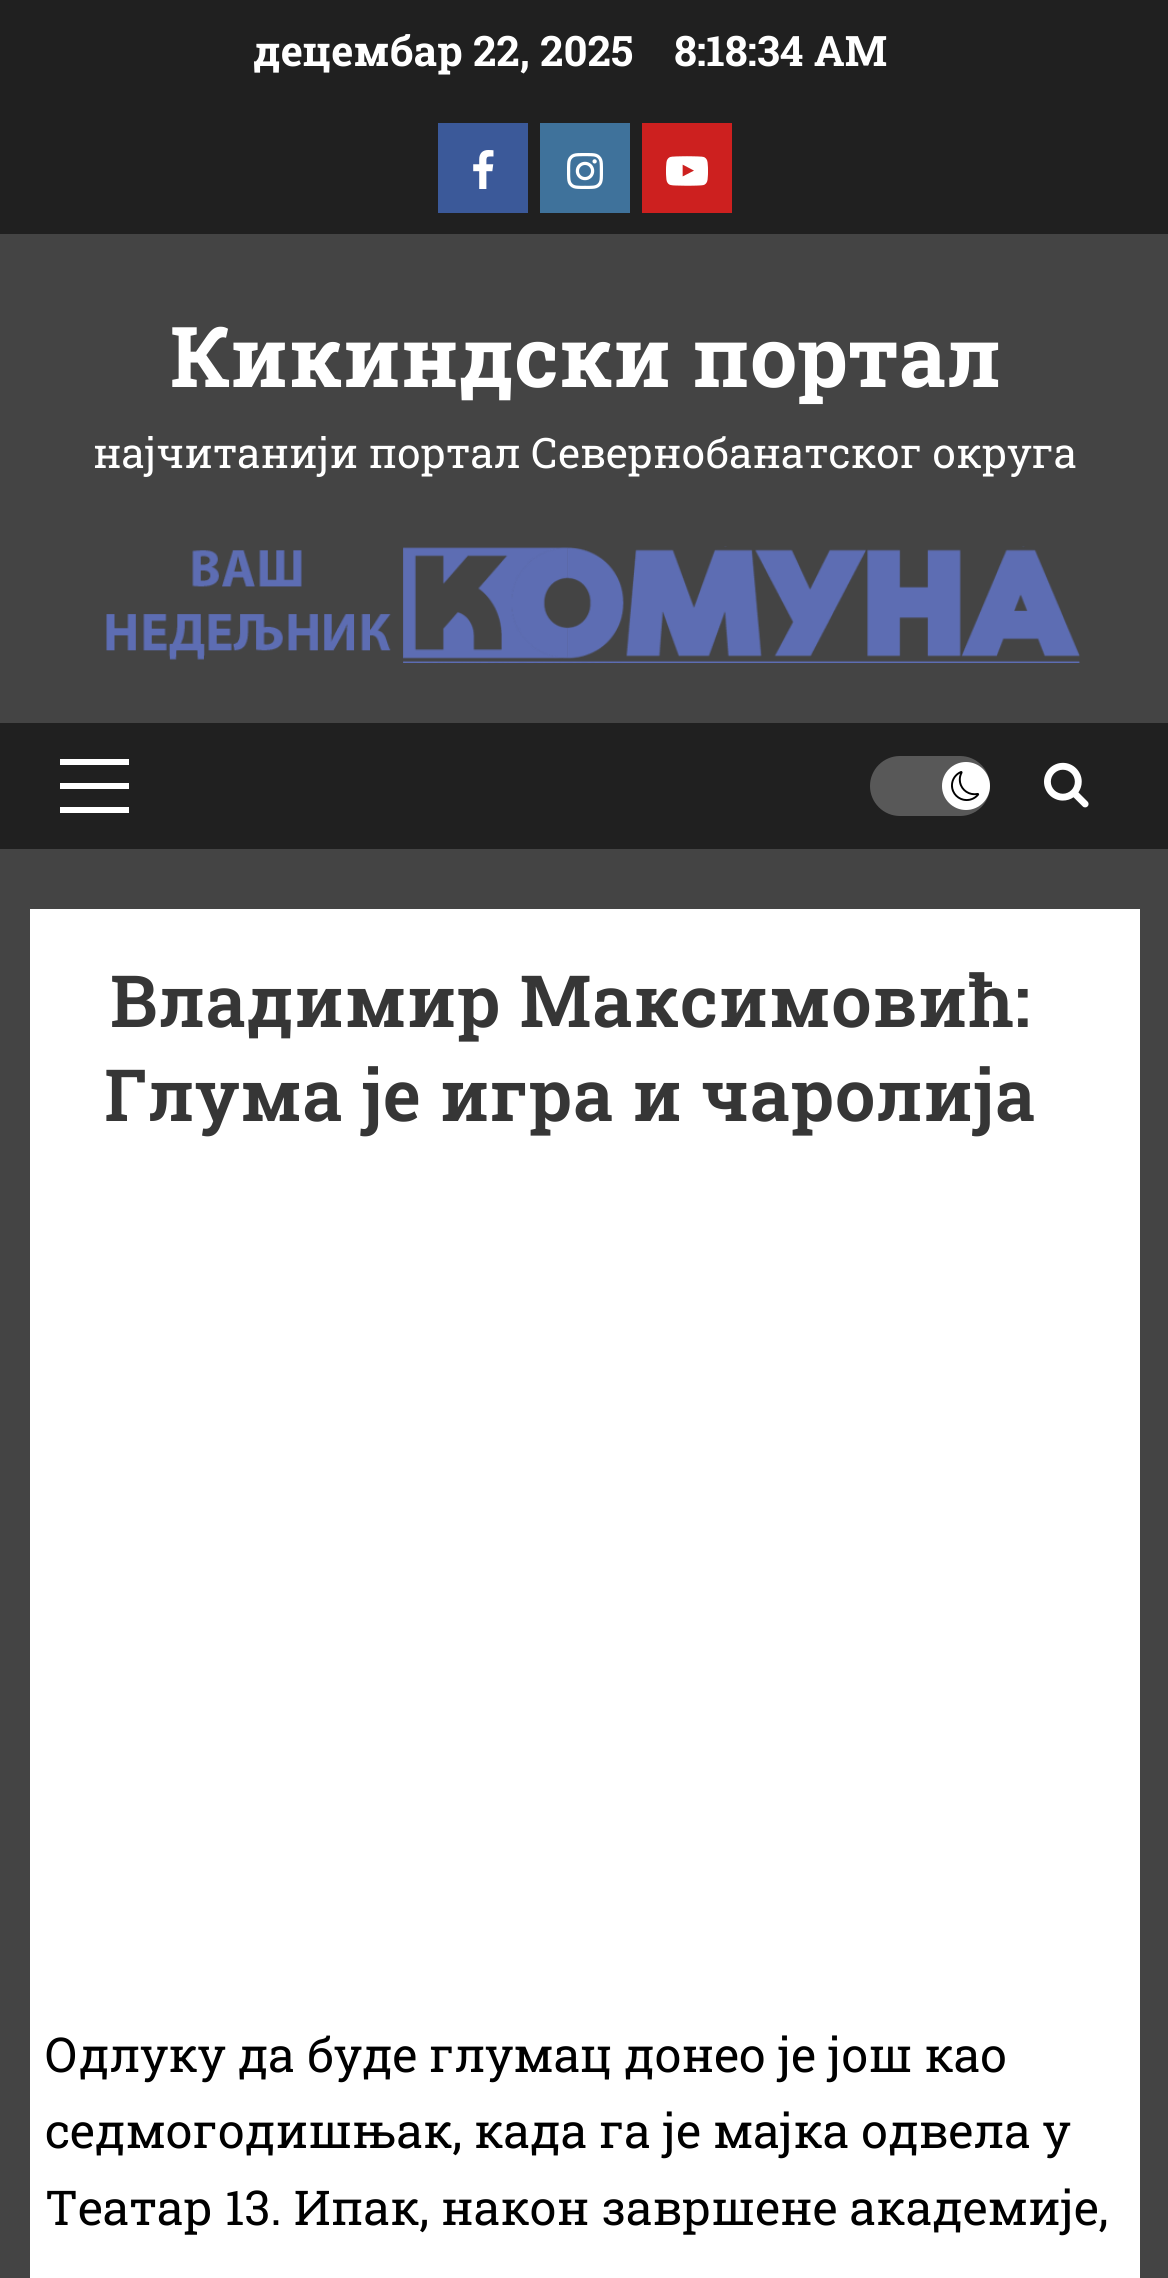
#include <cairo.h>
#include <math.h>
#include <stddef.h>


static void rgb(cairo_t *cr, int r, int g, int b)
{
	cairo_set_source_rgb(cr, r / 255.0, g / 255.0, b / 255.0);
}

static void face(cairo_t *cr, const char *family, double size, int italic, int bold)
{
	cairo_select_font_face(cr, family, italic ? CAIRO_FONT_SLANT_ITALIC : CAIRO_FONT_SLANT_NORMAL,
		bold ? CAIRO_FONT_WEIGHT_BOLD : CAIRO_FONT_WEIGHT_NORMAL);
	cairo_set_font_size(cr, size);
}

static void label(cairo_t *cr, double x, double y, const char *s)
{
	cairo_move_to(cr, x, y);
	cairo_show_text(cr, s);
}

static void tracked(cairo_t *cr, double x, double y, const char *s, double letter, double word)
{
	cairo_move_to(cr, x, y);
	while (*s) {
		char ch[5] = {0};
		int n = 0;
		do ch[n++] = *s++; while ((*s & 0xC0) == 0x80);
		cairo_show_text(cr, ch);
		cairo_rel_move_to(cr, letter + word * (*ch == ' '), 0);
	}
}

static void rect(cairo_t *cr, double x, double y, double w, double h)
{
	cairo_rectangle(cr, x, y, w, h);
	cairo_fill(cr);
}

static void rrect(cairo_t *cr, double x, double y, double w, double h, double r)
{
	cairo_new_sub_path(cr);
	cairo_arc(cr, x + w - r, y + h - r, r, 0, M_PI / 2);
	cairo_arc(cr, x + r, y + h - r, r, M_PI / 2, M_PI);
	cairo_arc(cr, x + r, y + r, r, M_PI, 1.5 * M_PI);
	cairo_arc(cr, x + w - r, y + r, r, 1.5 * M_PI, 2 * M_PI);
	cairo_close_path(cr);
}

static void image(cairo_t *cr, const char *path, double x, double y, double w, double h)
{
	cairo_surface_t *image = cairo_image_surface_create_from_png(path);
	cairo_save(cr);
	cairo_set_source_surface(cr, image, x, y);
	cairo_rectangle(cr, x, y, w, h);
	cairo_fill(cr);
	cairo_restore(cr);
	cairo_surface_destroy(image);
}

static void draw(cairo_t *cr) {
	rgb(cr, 68, 68, 68);
	cairo_paint(cr);
	rgb(cr, 32, 32, 32);
	rect(cr, 0, 0, 1168, 234);
	face(cr, "Roboto Slab", 42, 0, 1);
	rgb(cr, 255, 255, 255);
	label(cr, 253, 66, "децембар 22, 2025");
	label(cr, 674, 66, "8:18:34 AM");
	rgb(cr, 59, 89, 153);
	rect(cr, 438, 123, 90, 90);
	image(cr, "image0.png", 473, 150, 21, 39);
	rgb(cr, 63, 114, 155);
	rect(cr, 540, 123, 90, 90);
	image(cr, "image1.png", 567, 153, 36, 36);
	rgb(cr, 205, 32, 31);
	rect(cr, 642, 123, 90, 90);
	image(cr, "image2.png", 666, 156, 42, 30);
	face(cr, "Roboto Slab", 84, 0, 1);
	rgb(cr, 255, 255, 255);
	label(cr, 170, 387, "Кикиндски портал");
	face(cr, "Roboto Slab", 42, 0, 0);
	label(cr, 93, 468, "најчитанији портал Севернобанатског округа");
	image(cr, "image3.png", 106, 546, 974, 117);
	rgb(cr, 32, 32, 32);
	rect(cr, 0, 723, 1168, 126);
	rgb(cr, 255, 255, 255);
	rect(cr, 60, 783, 69, 6);
	rect(cr, 60, 759, 69, 6);
	rect(cr, 60, 807, 69, 6);
	rgb(cr, 88, 88, 88);
	rrect(cr, 870, 756, 120, 60, 30);
	cairo_fill(cr);
	rgb(cr, 255, 255, 255);
	cairo_arc(cr, 966, 786, 24, 0, 2 * M_PI);
	cairo_fill(cr);
	image(cr, "image4.png", 951, 771, 29, 30);
	image(cr, "image5.png", 1044, 762, 45, 46);
	rect(cr, 30, 909, 1110, 1369);
	face(cr, "Roboto Slab SemiBold", 72, 0, 0);
	rgb(cr, 54, 54, 54);
	tracked(cr, 110, 1027, "Владимир Максимовић:", 0.6, 0);
	tracked(cr, 104, 1121, "Глума је игра и чаролија", 0.6, 0);
	face(cr, "Roboto Slab", 48, 0, 0);
	rgb(cr, 0, 0, 0);
	label(cr, 45, 2072, "Одлуку да буде глумац донео је још као");
	label(cr, 45, 2148, "седмогодишњак, када га је мајка одвела у");
	label(cr, 45, 2225, "Театар 13. Ипак, након завршене академије,");
}

int main(void) {
	cairo_surface_t *surface = cairo_image_surface_create(CAIRO_FORMAT_RGB24, 1168, 2278);
	cairo_t *cr = cairo_create(surface);
	cairo_font_options_t *options = cairo_font_options_create();
	cairo_font_options_set_hint_metrics(options, CAIRO_HINT_METRICS_OFF);
	cairo_font_options_set_hint_style(options, CAIRO_HINT_STYLE_NONE);
	cairo_set_font_options(cr, options);
	cairo_set_miter_limit(cr, 4);
	draw(cr);
	cairo_surface_write_to_png(surface, "render.png");
	cairo_font_options_destroy(options);
	cairo_destroy(cr);
	cairo_surface_destroy(surface);
	return 0;
}
